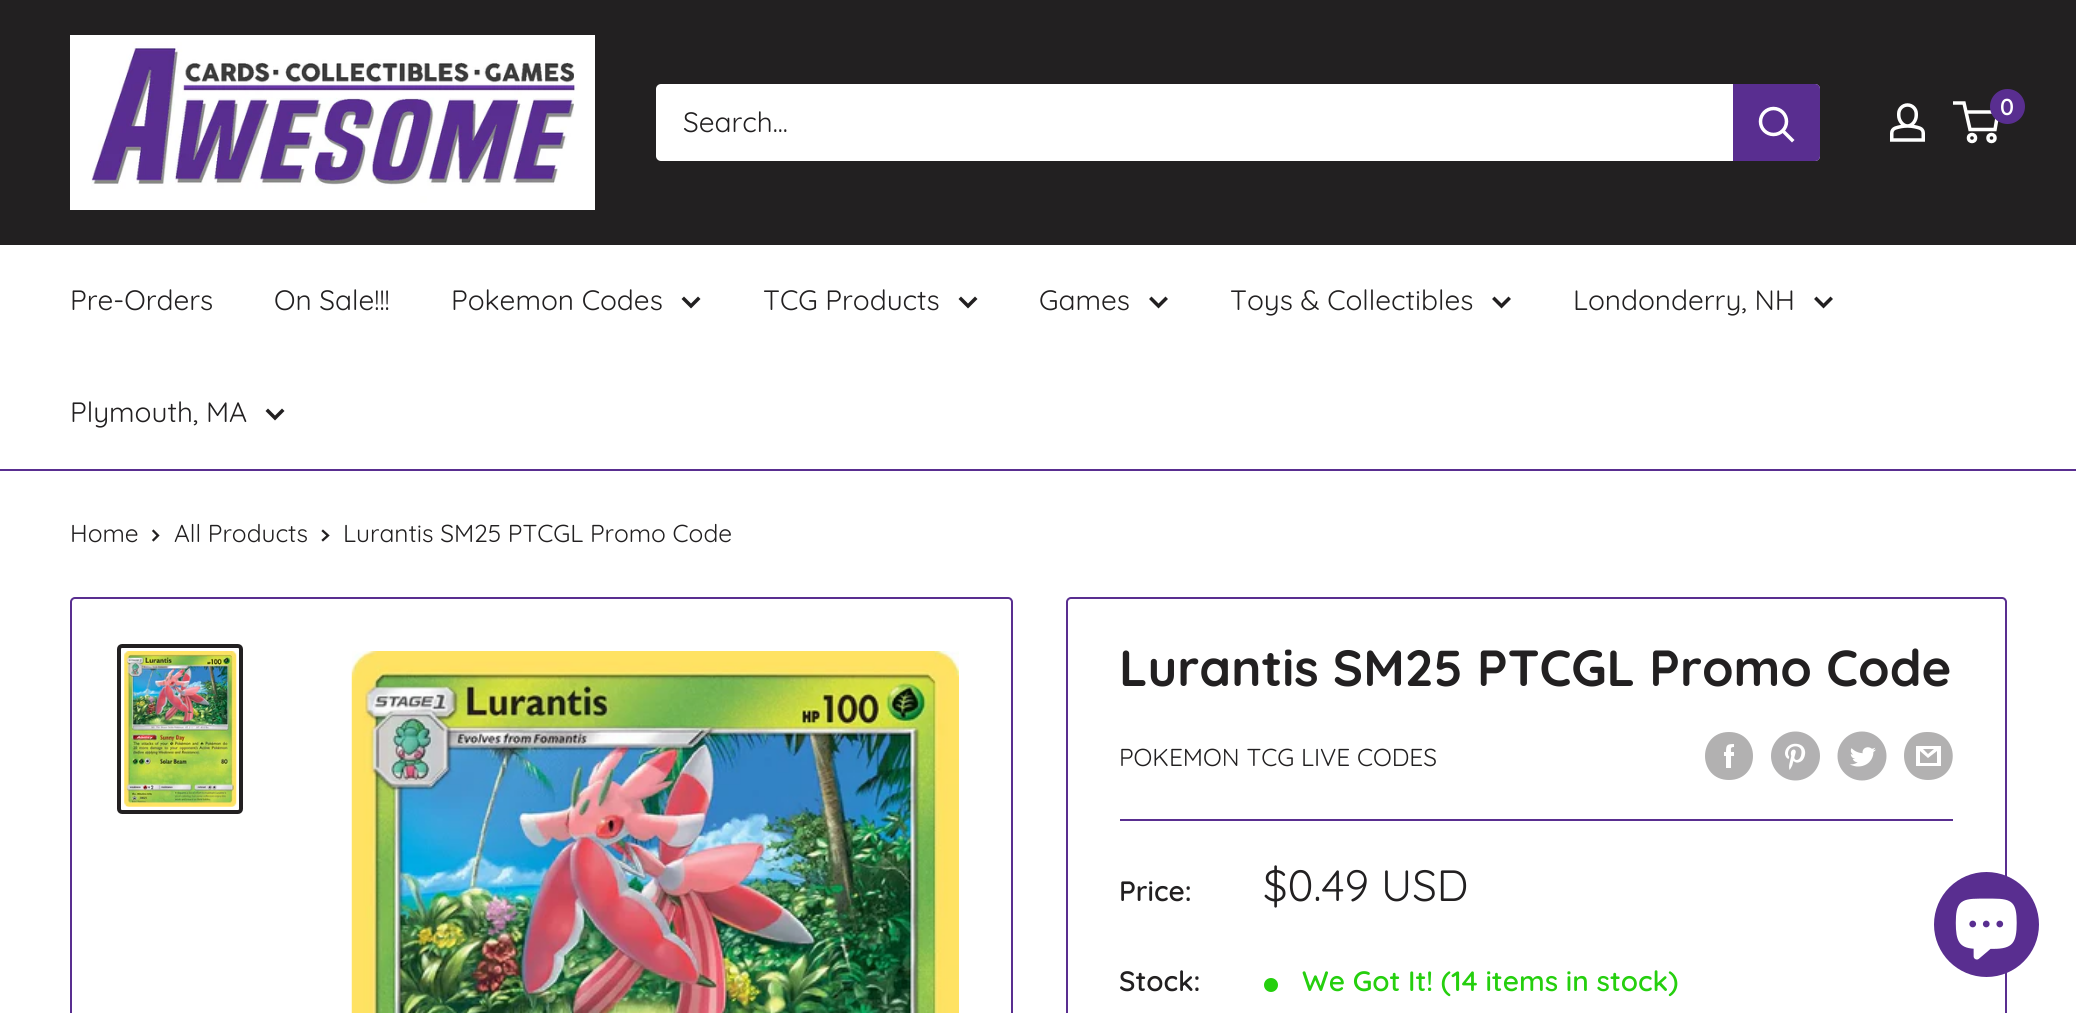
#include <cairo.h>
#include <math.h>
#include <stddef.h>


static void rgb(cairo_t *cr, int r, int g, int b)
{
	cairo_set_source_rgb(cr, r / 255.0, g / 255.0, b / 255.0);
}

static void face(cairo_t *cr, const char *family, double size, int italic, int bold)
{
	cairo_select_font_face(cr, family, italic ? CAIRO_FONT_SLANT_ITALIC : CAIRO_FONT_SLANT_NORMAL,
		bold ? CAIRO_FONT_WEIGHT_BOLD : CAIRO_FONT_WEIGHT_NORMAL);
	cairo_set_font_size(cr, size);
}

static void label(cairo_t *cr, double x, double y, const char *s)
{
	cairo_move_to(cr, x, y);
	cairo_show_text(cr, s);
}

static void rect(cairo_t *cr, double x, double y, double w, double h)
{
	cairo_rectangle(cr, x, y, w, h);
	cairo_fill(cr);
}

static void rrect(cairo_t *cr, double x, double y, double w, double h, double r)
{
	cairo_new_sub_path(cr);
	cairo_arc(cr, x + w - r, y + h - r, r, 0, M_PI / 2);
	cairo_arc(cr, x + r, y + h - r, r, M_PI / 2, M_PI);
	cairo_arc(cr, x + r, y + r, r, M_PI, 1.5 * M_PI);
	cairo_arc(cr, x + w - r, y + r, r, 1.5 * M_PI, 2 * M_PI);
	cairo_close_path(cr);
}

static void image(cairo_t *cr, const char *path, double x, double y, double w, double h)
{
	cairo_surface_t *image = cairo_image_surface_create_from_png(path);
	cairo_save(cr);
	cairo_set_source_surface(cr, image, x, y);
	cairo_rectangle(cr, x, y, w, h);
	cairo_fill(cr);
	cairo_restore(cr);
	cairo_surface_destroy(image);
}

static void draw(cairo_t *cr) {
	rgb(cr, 255, 255, 255);
	cairo_paint(cr);
	rgb(cr, 34, 32, 33);
	rect(cr, 0, 0, 2076, 245);
	image(cr, "image0.png", 70, 35, 525, 175);
	image(cr, "image1.png", 1890, 103, 35, 39);
	cairo_arc(cr, 1972, 138, 3.5, 0, 2 * M_PI);
	rgb(cr, 255, 255, 255);
	cairo_set_line_width(cr, 3.5);
	cairo_stroke(cr);
	cairo_arc(cr, 1991.5, 138, 3.5, 0, 2 * M_PI);
	cairo_stroke(cr);
	cairo_new_path(cr);
	cairo_move_to(cr, 1966, 112);
	cairo_line_to(cr, 1998, 112);
	cairo_line_to(cr, 1995, 129.5);
	cairo_line_to(cr, 1970, 129.5);
	cairo_line_to(cr, 1964, 103);
	cairo_line_to(cr, 1953, 103);
	cairo_stroke(cr);
	rgb(cr, 89, 46, 144);
	cairo_arc(cr, 2007.5, 106.5, 17.5, 0, 2 * M_PI);
	cairo_fill(cr);
	face(cr, "Quicksand SemiBold", 23, 0, 0);
	rgb(cr, 255, 255, 255);
	label(cr, 2000, 115, "0");
	rrect(cr, 656, 84, 1164, 77, 5);
	cairo_fill(cr);
	face(cr, "Quicksand", 28, 0, 0);
	rgb(cr, 34, 32, 33);
	label(cr, 683, 132, "Search...");
	rgb(cr, 89, 46, 144);
	cairo_new_path(cr);
	cairo_move_to(cr, 1733, 84);
	cairo_line_to(cr, 1815, 84);
	cairo_curve_to(cr, 1818, 84, 1820, 86, 1820, 89);
	cairo_line_to(cr, 1820, 156);
	cairo_curve_to(cr, 1820, 159, 1818, 161, 1815, 161);
	cairo_line_to(cr, 1733, 161);
	cairo_close_path(cr);
	cairo_fill(cr);
	cairo_new_path(cr);
	cairo_move_to(cr, 1792, 140);
	cairo_line_to(cr, 1783, 131);
	rgb(cr, 255, 255, 255);
	cairo_set_line_cap(cr, CAIRO_LINE_CAP_SQUARE);
	cairo_stroke(cr);
	cairo_arc(cr, 1773.5, 121.5, 13, 0, 2 * M_PI);
	cairo_set_line_cap(cr, CAIRO_LINE_CAP_BUTT);
	cairo_stroke(cr);
	rgb(cr, 89, 46, 144);
	rect(cr, 0, 469, 2076, 2);
	rgb(cr, 34, 32, 33);
	label(cr, 70, 310, "Pre-Orders");
	label(cr, 274, 310, "On Sale!!!");
	label(cr, 451, 310, "Pokemon Codes");
	cairo_new_path(cr);
	cairo_move_to(cr, 698, 299);
	cairo_line_to(cr, 691, 306);
	cairo_line_to(cr, 684, 299);
	cairo_set_line_cap(cr, CAIRO_LINE_CAP_SQUARE);
	cairo_stroke(cr);
	label(cr, 763, 310, "TCG Products");
	cairo_new_path(cr);
	cairo_move_to(cr, 975, 299);
	cairo_line_to(cr, 968, 306);
	cairo_line_to(cr, 961, 299);
	cairo_stroke(cr);
	label(cr, 1039, 310, "Games");
	cairo_new_path(cr);
	cairo_move_to(cr, 1165.5, 299);
	cairo_line_to(cr, 1158.5, 306);
	cairo_line_to(cr, 1151.5, 299);
	cairo_stroke(cr);
	label(cr, 1230, 310, "Toys & Collectibles");
	cairo_new_path(cr);
	cairo_move_to(cr, 1508.5, 299);
	cairo_line_to(cr, 1501.5, 306);
	cairo_line_to(cr, 1494.5, 299);
	cairo_stroke(cr);
	label(cr, 1573, 310, "Londonderry, NH");
	cairo_new_path(cr);
	cairo_move_to(cr, 1830.5, 299);
	cairo_line_to(cr, 1823.5, 306);
	cairo_line_to(cr, 1816.5, 299);
	cairo_stroke(cr);
	label(cr, 70, 422, "Plymouth, MA");
	cairo_new_path(cr);
	cairo_move_to(cr, 282, 411);
	cairo_line_to(cr, 275, 418);
	cairo_line_to(cr, 268, 411);
	cairo_stroke(cr);
	face(cr, "Quicksand", 24.5, 0, 0);
	label(cr, 70, 542, "Home");
	cairo_new_path(cr);
	cairo_move_to(cr, 153.5, 531);
	cairo_line_to(cr, 158, 535.5);
	cairo_line_to(cr, 153.5, 540);
	cairo_set_line_width(cr, 2.3);
	cairo_stroke(cr);
	label(cr, 174, 542, "All Products");
	cairo_new_path(cr);
	cairo_move_to(cr, 323, 531);
	cairo_line_to(cr, 328, 535.5);
	cairo_line_to(cr, 323, 540);
	cairo_stroke(cr);
	label(cr, 343, 542, "Lurantis SM25 PTCGL Promo Code");
	rrect(cr, 71, 598, 941, 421, 4);
	rgb(cr, 89, 46, 144);
	cairo_set_line_width(cr, 2);
	cairo_set_line_cap(cr, CAIRO_LINE_CAP_BUTT);
	cairo_stroke(cr);
	rrect(cr, 119, 646, 122, 166, 3);
	rgb(cr, 34, 32, 33);
	cairo_set_line_width(cr, 4);
	cairo_stroke(cr);
	image(cr, "image2.png", 124, 651, 113, 156);
	image(cr, "image3.png", 351, 651, 608, 362);
	rrect(cr, 1067, 598, 939, 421, 4);
	rgb(cr, 89, 46, 144);
	cairo_set_line_width(cr, 2);
	cairo_stroke(cr);
	face(cr, "Quicksand", 50.75, 0, 1);
	rgb(cr, 34, 32, 33);
	label(cr, 1119, 686, "Lurantis SM25 PTCGL Promo Code");
	face(cr, "Quicksand", 24.5, 0, 0);
	label(cr, 1119, 766, "POKEMON TCG LIVE CODES");
	rgb(cr, 178, 177, 177);
	cairo_set_fill_rule(cr, CAIRO_FILL_RULE_EVEN_ODD);
	cairo_new_path(cr);
	cairo_move_to(cr, 1729, 780);
	cairo_curve_to(cr, 1697, 780, 1697, 732, 1729, 732);
	cairo_curve_to(cr, 1761, 732, 1761, 780, 1729, 780);
	cairo_close_path(cr);
	cairo_move_to(cr, 1734, 752);
	cairo_line_to(cr, 1731, 752);
	cairo_curve_to(cr, 1731, 749, 1730, 747, 1734, 747);
	cairo_line_to(cr, 1734, 744);
	cairo_curve_to(cr, 1727, 744, 1726, 745, 1726, 752);
	cairo_line_to(cr, 1724, 752);
	cairo_line_to(cr, 1724, 756);
	cairo_line_to(cr, 1726, 756);
	cairo_line_to(cr, 1726, 768);
	cairo_line_to(cr, 1731, 768);
	cairo_line_to(cr, 1731, 756);
	cairo_line_to(cr, 1734, 756);
	cairo_close_path(cr);
	cairo_fill(cr);
	image(cr, "image4.png", 1771, 731, 49, 50);
	image(cr, "image5.png", 1837, 731, 50, 50);
	cairo_set_fill_rule(cr, CAIRO_FILL_RULE_WINDING);
	cairo_new_path(cr);
	cairo_move_to(cr, 1928, 780);
	cairo_curve_to(cr, 1896, 780, 1896, 731, 1928, 732);
	cairo_curve_to(cr, 1961, 732, 1961, 780, 1928, 780);
	cairo_close_path(cr);
	cairo_move_to(cr, 1923, 749);
	cairo_line_to(cr, 1934, 749);
	cairo_line_to(cr, 1928, 754);
	cairo_close_path(cr);
	cairo_move_to(cr, 1937, 751);
	cairo_line_to(cr, 1937, 763);
	cairo_line_to(cr, 1920, 763);
	cairo_line_to(cr, 1920, 751);
	cairo_line_to(cr, 1928, 758);
	cairo_close_path(cr);
	cairo_move_to(cr, 1941, 746);
	cairo_line_to(cr, 1916, 746);
	cairo_line_to(cr, 1916, 766);
	cairo_line_to(cr, 1941, 766);
	cairo_close_path(cr);
	cairo_fill(cr);
	rgb(cr, 89, 46, 144);
	rect(cr, 1120, 819, 833, 2);
	face(cr, "Quicksand SemiBold", 28, 0, 0);
	rgb(cr, 34, 32, 33);
	label(cr, 1119, 901, "Price:");
	face(cr, "Quicksand", 43.75, 0, 0);
	label(cr, 1263, 901, "$0.49 USD");
	face(cr, "Quicksand SemiBold", 28, 0, 0);
	label(cr, 1119, 991, "Stock:");
	rgb(cr, 37, 207, 14);
	cairo_new_path(cr);
	cairo_arc(cr, 1271, 985, 7, 0, 2 * M_PI);
	cairo_fill(cr);
	label(cr, 1302, 991, "We Got It! (14 items in stock)");
	rgb(cr, 89, 46, 144);
	cairo_new_path(cr);
	cairo_arc(cr, 1986.5, 924.5, 52.5, 0, 2 * M_PI);
	cairo_fill(cr);
	image(cr, "image6.png", 1955, 898, 62, 62);
}

int main(void) {
	cairo_surface_t *surface = cairo_image_surface_create(CAIRO_FORMAT_RGB24, 2076, 1013);
	cairo_t *cr = cairo_create(surface);
	cairo_font_options_t *options = cairo_font_options_create();
	cairo_font_options_set_hint_metrics(options, CAIRO_HINT_METRICS_OFF);
	cairo_font_options_set_hint_style(options, CAIRO_HINT_STYLE_NONE);
	cairo_set_font_options(cr, options);
	cairo_set_miter_limit(cr, 4);
	draw(cr);
	cairo_surface_write_to_png(surface, "render.png");
	cairo_font_options_destroy(options);
	cairo_destroy(cr);
	cairo_surface_destroy(surface);
	return 0;
}
